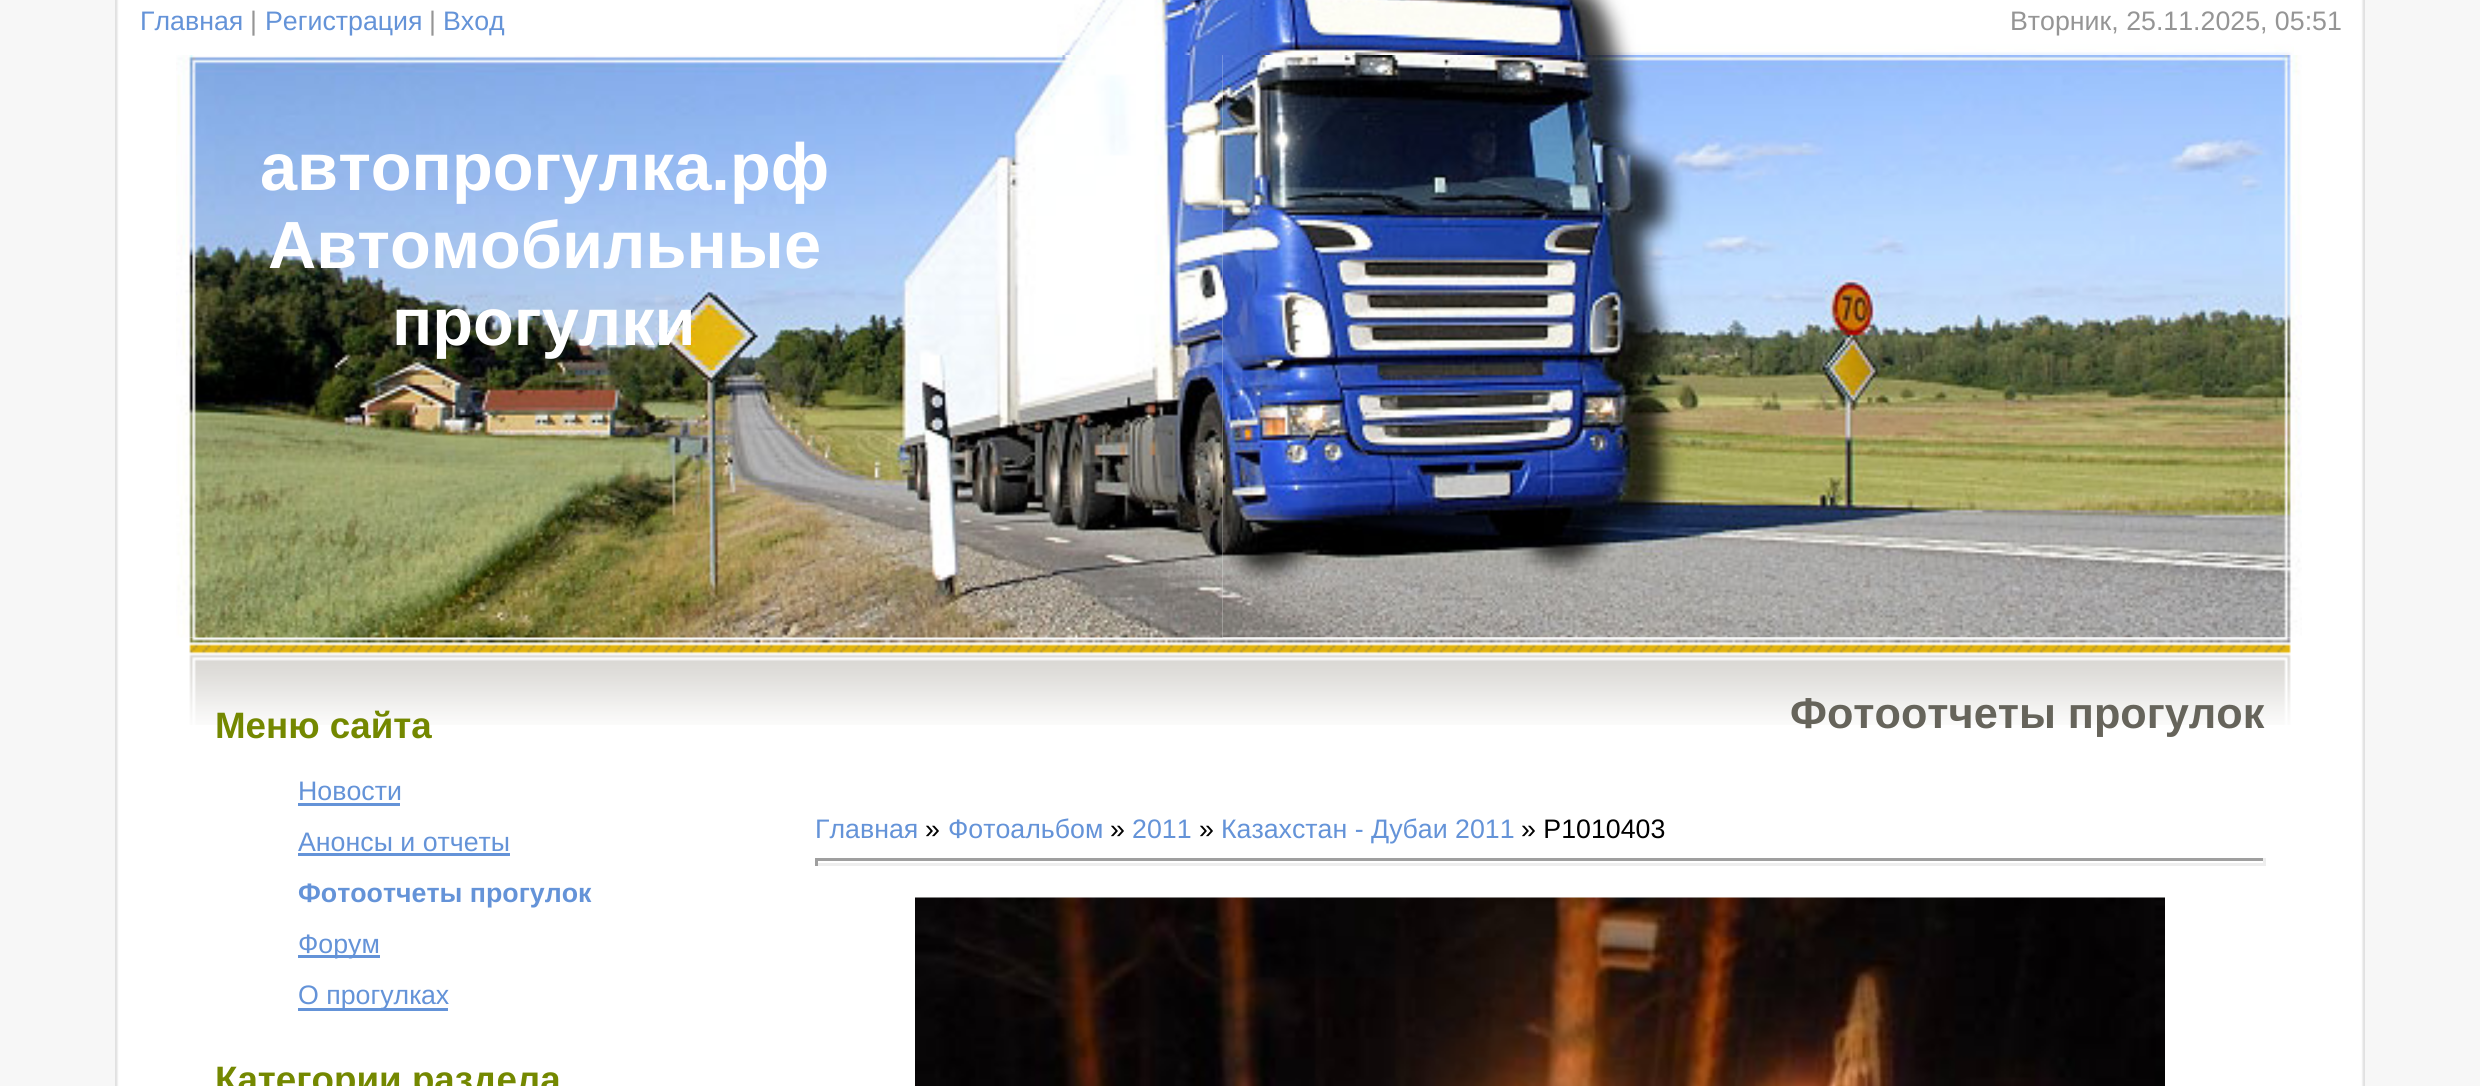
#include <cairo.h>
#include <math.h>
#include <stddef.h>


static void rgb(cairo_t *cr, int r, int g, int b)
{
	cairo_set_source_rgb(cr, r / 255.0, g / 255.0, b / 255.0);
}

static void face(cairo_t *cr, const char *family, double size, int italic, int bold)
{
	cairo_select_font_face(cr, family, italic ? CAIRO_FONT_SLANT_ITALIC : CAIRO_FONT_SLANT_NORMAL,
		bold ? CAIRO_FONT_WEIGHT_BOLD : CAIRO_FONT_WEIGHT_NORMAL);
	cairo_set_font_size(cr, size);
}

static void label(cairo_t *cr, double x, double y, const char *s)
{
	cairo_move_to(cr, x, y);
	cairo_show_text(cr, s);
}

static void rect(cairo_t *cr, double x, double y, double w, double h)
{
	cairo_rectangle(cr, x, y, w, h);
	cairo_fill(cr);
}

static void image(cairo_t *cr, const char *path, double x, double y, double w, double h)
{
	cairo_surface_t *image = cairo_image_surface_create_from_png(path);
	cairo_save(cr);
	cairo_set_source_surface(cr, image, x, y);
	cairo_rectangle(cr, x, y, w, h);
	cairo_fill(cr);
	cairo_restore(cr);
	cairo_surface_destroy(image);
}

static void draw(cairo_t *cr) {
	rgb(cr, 247, 247, 247);
	cairo_paint(cr);
	image(cr, "image0.png", 115, 0, 2250, 1086);
	image(cr, "image1.png", 1057, 0, 1237, 55);
	face(cr, "Liberation Sans", 26.75, 0, 0);
	rgb(cr, 100, 147, 216);
	label(cr, 140, 30, "Главная");
	rgb(cr, 149, 149, 149);
	label(cr, 250, 30, "|");
	rgb(cr, 100, 147, 216);
	label(cr, 265, 30, "Регистрация");
	rgb(cr, 149, 149, 149);
	label(cr, 429, 30, "|");
	rgb(cr, 100, 147, 216);
	label(cr, 443, 30, "Вход");
	rgb(cr, 149, 149, 149);
	label(cr, 2010, 30, "Вторник, 25.11.2025, 05:51");
	image(cr, "image2.png", 1222, 55, 1080, 583);
	image(cr, "image4.png", 189, 637, 2102, 88);
	image(cr, "image3.png", 176, 55, 1047, 583);
	face(cr, "Liberation Sans", 66.75, 0, 1);
	rgb(cr, 255, 255, 255);
	label(cr, 260, 190, "автопрогулка.рф");
	label(cr, 268, 268, "Автомобильные");
	label(cr, 392, 345, "прогулки");
	face(cr, "Liberation Sans", 36.75, 0, 1);
	rgb(cr, 116, 136, 0);
	label(cr, 215, 738, "Меню сайта");
	face(cr, "Liberation Sans", 26.75, 0, 0);
	rgb(cr, 100, 147, 216);
	label(cr, 298, 800, "Новости");
	rect(cr, 298, 803, 102, 3);
	label(cr, 298, 851, "Анонсы и отчеты");
	rect(cr, 298, 853, 212, 3);
	face(cr, "Liberation Sans", 26.75, 0, 1);
	label(cr, 298, 902, "Фотоотчеты прогулок");
	rect(cr, 298, 955, 82, 3);
	face(cr, "Liberation Sans", 26.75, 0, 0);
	label(cr, 298, 953, "Форум");
	rect(cr, 298, 1008, 150, 3);
	label(cr, 298, 1004, "О прогулках");
	face(cr, "Liberation Sans", 36.75, 0, 1);
	rgb(cr, 116, 136, 0);
	label(cr, 215, 1092, "Категории раздела");
	face(cr, "Liberation Sans", 43.25, 0, 1);
	rgb(cr, 102, 100, 91);
	label(cr, 1790, 728, "Фотоотчеты прогулок");
	face(cr, "Liberation Sans", 26.75, 0, 0);
	rgb(cr, 100, 147, 216);
	label(cr, 815, 838, "Главная");
	rgb(cr, 0, 0, 0);
	label(cr, 925, 838, "»");
	rgb(cr, 100, 147, 216);
	label(cr, 948, 838, "Фотоальбом");
	rgb(cr, 0, 0, 0);
	label(cr, 1110, 838, "»");
	rgb(cr, 100, 147, 216);
	label(cr, 1132, 838, "2011");
	rgb(cr, 0, 0, 0);
	label(cr, 1199, 838, "»");
	rgb(cr, 100, 147, 216);
	label(cr, 1221, 838, "Казахстан - Дубаи 2011");
	rgb(cr, 0, 0, 0);
	label(cr, 1521, 838, "» P1010403");
	rgb(cr, 159, 159, 159);
	rect(cr, 815, 858, 1450, 3);
	rgb(cr, 238, 238, 238);
	rect(cr, 2263, 858, 3, 8);
	rect(cr, 815, 863, 1450, 3);
	rgb(cr, 159, 159, 159);
	rect(cr, 815, 858, 3, 8);
	image(cr, "image5.png", 915, 897, 1250, 189);
}

int main(void) {
	cairo_surface_t *surface = cairo_image_surface_create(CAIRO_FORMAT_RGB24, 2480, 1086);
	cairo_t *cr = cairo_create(surface);
	cairo_font_options_t *options = cairo_font_options_create();
	cairo_font_options_set_hint_metrics(options, CAIRO_HINT_METRICS_OFF);
	cairo_font_options_set_hint_style(options, CAIRO_HINT_STYLE_NONE);
	cairo_set_font_options(cr, options);
	cairo_set_miter_limit(cr, 4);
	draw(cr);
	cairo_surface_write_to_png(surface, "render.png");
	cairo_font_options_destroy(options);
	cairo_destroy(cr);
	cairo_surface_destroy(surface);
	return 0;
}
